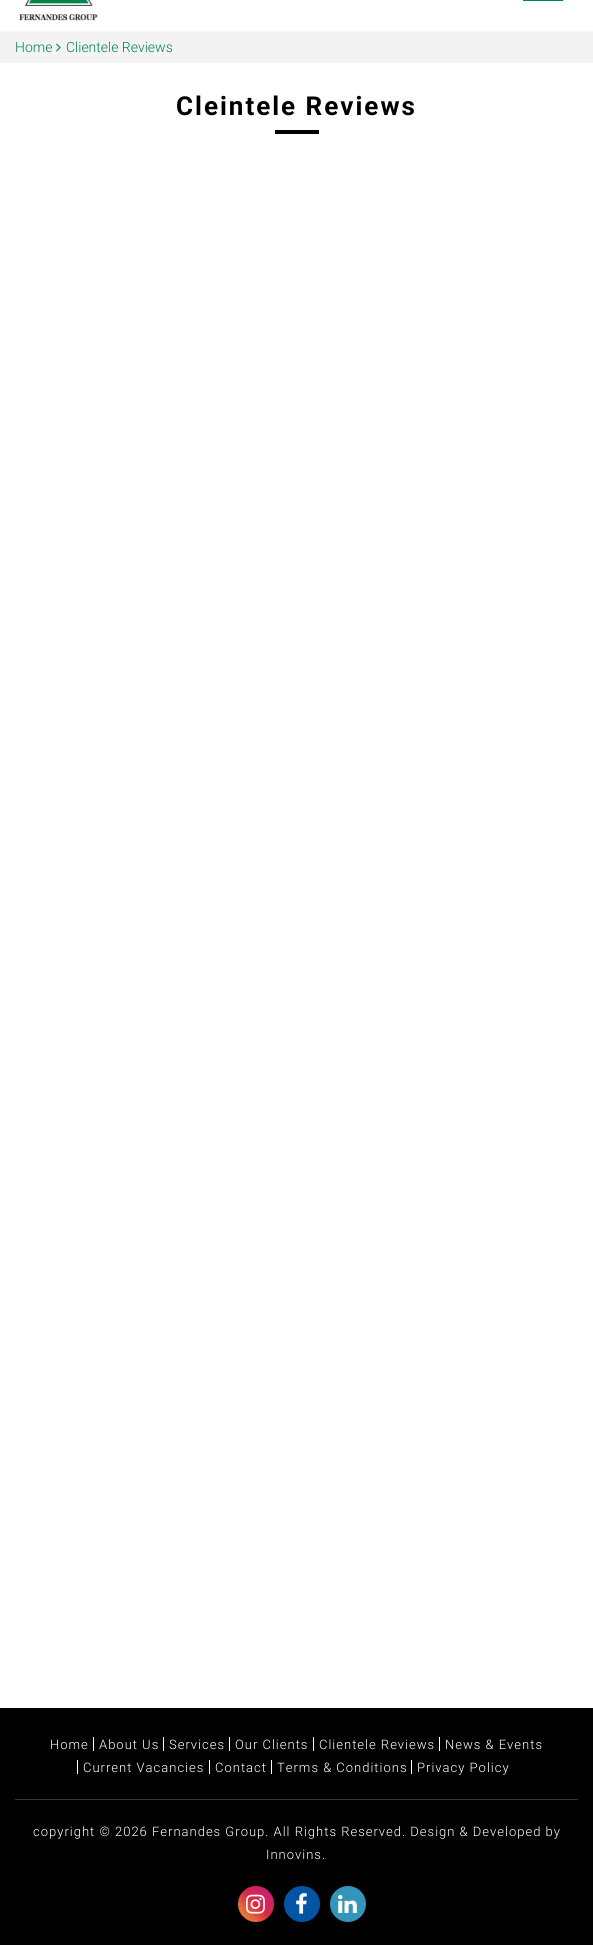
#include <cairo.h>
#include <math.h>
#include <stddef.h>


static void rgb(cairo_t *cr, int r, int g, int b)
{
	cairo_set_source_rgb(cr, r / 255.0, g / 255.0, b / 255.0);
}

static void face(cairo_t *cr, const char *family, double size, int italic, int bold)
{
	cairo_select_font_face(cr, family, italic ? CAIRO_FONT_SLANT_ITALIC : CAIRO_FONT_SLANT_NORMAL,
		bold ? CAIRO_FONT_WEIGHT_BOLD : CAIRO_FONT_WEIGHT_NORMAL);
	cairo_set_font_size(cr, size);
}

static void label(cairo_t *cr, double x, double y, const char *s)
{
	cairo_move_to(cr, x, y);
	cairo_show_text(cr, s);
}

static void tracked(cairo_t *cr, double x, double y, const char *s, double letter, double word)
{
	cairo_move_to(cr, x, y);
	while (*s) {
		char ch[5] = {0};
		int n = 0;
		do ch[n++] = *s++; while ((*s & 0xC0) == 0x80);
		cairo_show_text(cr, ch);
		cairo_rel_move_to(cr, letter + word * (*ch == ' '), 0);
	}
}

static void rect(cairo_t *cr, double x, double y, double w, double h)
{
	cairo_rectangle(cr, x, y, w, h);
	cairo_fill(cr);
}

static void image(cairo_t *cr, const char *path, double x, double y, double w, double h)
{
	cairo_surface_t *image = cairo_image_surface_create_from_png(path);
	cairo_save(cr);
	cairo_set_source_surface(cr, image, x, y);
	cairo_rectangle(cr, x, y, w, h);
	cairo_fill(cr);
	cairo_restore(cr);
	cairo_surface_destroy(image);
}

static void draw(cairo_t *cr) {
	cairo_pattern_t *gradient;
	rgb(cr, 255, 255, 255);
	cairo_paint(cr);
	image(cr, "image0.png", 19, 0, 79, 21);
	cairo_rectangle(cr, 523.5, -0.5, 39, 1);
	rgb(cr, 0, 133, 72);
	cairo_set_line_width(cr, 1);
	cairo_stroke(cr);
	rgb(cr, 243, 243, 243);
	rect(cr, 0, 31, 593, 32);
	face(cr, "Roboto Light", 14, 0, 0);
	rgb(cr, 0, 133, 72);
	label(cr, 15, 52, "Home");
	image(cr, "image1.png", 56, 43, 5, 9);
	label(cr, 66, 52, "Clientele Reviews");
	face(cr, "Roboto", 26, 0, 1);
	rgb(cr, 0, 0, 0);
	tracked(cr, 176, 115, "Cleintele Reviews", 2, 0);
	rect(cr, 275, 130, 44, 4);
	rect(cr, 0, 1708, 593, 237);
	rgb(cr, 51, 51, 51);
	rect(cr, 15, 1799, 563, 1);
	face(cr, "Roboto Light", 13, 0, 0);
	rgb(cr, 255, 255, 255);
	tracked(cr, 50, 1749, "Home", 1, 0);
	rect(cr, 93, 1737, 1, 14);
	tracked(cr, 99, 1749, "About Us", 1, 0);
	rect(cr, 163, 1737, 1, 14);
	tracked(cr, 169, 1749, "Services", 1, 0);
	rect(cr, 229, 1737, 1, 14);
	tracked(cr, 235, 1749, "Our Clients", 1, 0);
	rect(cr, 313, 1737, 1, 14);
	tracked(cr, 319, 1749, "Clientele Reviews", 1, 0);
	rect(cr, 439, 1737, 1, 14);
	tracked(cr, 445, 1749, "News & Events", 1, 0);
	rect(cr, 77, 1760, 1, 14);
	tracked(cr, 83, 1772, "Current Vacancies", 1, 0);
	rect(cr, 209, 1760, 1, 14);
	tracked(cr, 215, 1772, "Contact", 1, 0);
	rect(cr, 271, 1760, 1, 14);
	tracked(cr, 277, 1772, "Terms & Conditions", 1, 0);
	rect(cr, 411, 1760, 1, 14);
	tracked(cr, 417, 1772, "Privacy Policy", 1, 0);
	tracked(cr, 33, 1836, "copyright © 2026 Fernandes Group. All Rights Reserved. Design & Developed by", 1, 0);
	tracked(cr, 266, 1859, "Innovins.", 1, 0);
	gradient = cairo_pattern_create_linear(238, 1922, 274, 1886);
	cairo_pattern_add_color_stop_rgba(gradient, 0, 0.941, 0.58, 0.2, 1);
	cairo_pattern_add_color_stop_rgba(gradient, 0.25, 0.902, 0.408, 0.235, 1);
	cairo_pattern_add_color_stop_rgba(gradient, 0.5, 0.863, 0.153, 0.263, 1);
	cairo_pattern_add_color_stop_rgba(gradient, 0.75, 0.8, 0.137, 0.4, 1);
	cairo_pattern_add_color_stop_rgba(gradient, 1, 0.737, 0.094, 0.533, 1);
	cairo_set_source(cr, gradient);
	cairo_pattern_destroy(gradient);
	cairo_new_path(cr);
	cairo_arc(cr, 256, 1904, 18, 0, 2 * M_PI);
	cairo_fill(cr);
	image(cr, "image2.png", 246, 1894, 19, 20);
	rgb(cr, 2, 85, 165);
	cairo_arc(cr, 302, 1904, 18, 0, 2 * M_PI);
	cairo_fill(cr);
	image(cr, "image3.png", 296, 1893, 11, 21);
	rgb(cr, 51, 149, 186);
	cairo_arc(cr, 348, 1904, 18, 0, 2 * M_PI);
	cairo_fill(cr);
	image(cr, "image4.png", 338, 1895, 19, 18);
}

int main(void) {
	cairo_surface_t *surface = cairo_image_surface_create(CAIRO_FORMAT_RGB24, 593, 1945);
	cairo_t *cr = cairo_create(surface);
	cairo_font_options_t *options = cairo_font_options_create();
	cairo_font_options_set_hint_metrics(options, CAIRO_HINT_METRICS_OFF);
	cairo_font_options_set_hint_style(options, CAIRO_HINT_STYLE_NONE);
	cairo_set_font_options(cr, options);
	cairo_set_miter_limit(cr, 4);
	draw(cr);
	cairo_surface_write_to_png(surface, "render.png");
	cairo_font_options_destroy(options);
	cairo_destroy(cr);
	cairo_surface_destroy(surface);
	return 0;
}
